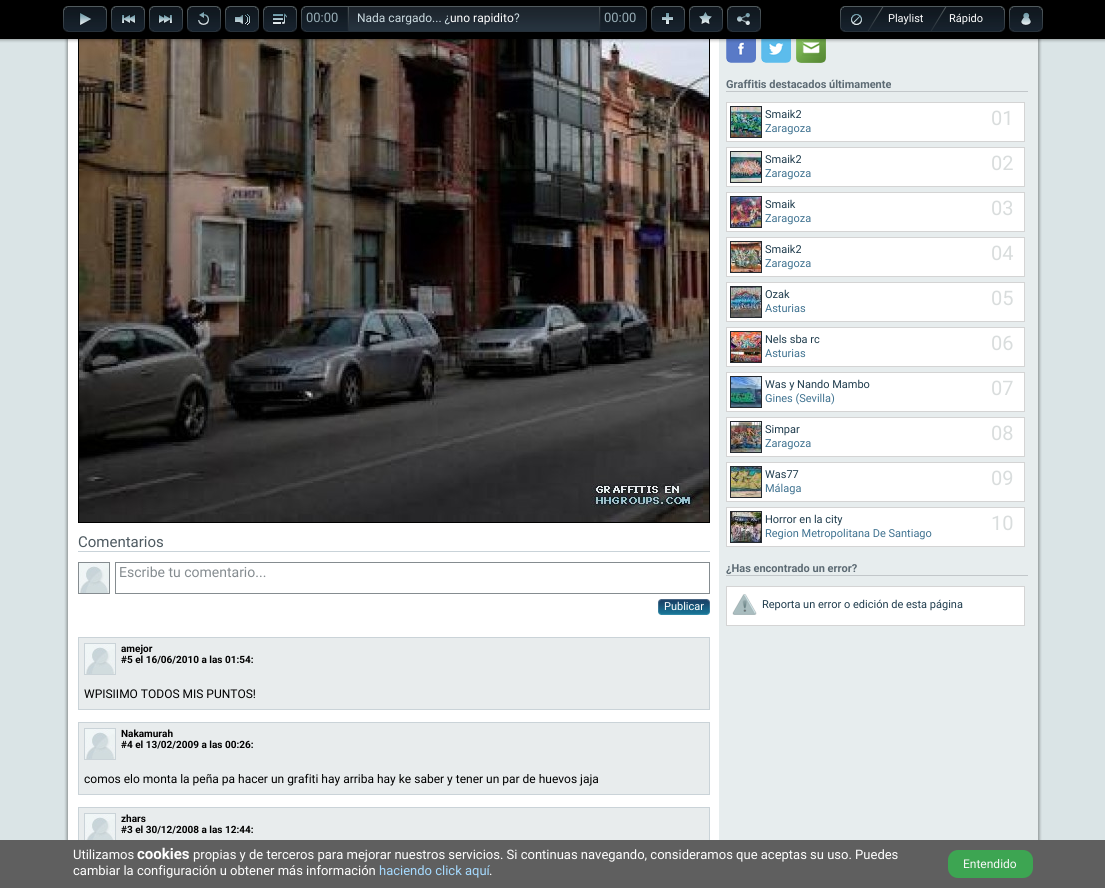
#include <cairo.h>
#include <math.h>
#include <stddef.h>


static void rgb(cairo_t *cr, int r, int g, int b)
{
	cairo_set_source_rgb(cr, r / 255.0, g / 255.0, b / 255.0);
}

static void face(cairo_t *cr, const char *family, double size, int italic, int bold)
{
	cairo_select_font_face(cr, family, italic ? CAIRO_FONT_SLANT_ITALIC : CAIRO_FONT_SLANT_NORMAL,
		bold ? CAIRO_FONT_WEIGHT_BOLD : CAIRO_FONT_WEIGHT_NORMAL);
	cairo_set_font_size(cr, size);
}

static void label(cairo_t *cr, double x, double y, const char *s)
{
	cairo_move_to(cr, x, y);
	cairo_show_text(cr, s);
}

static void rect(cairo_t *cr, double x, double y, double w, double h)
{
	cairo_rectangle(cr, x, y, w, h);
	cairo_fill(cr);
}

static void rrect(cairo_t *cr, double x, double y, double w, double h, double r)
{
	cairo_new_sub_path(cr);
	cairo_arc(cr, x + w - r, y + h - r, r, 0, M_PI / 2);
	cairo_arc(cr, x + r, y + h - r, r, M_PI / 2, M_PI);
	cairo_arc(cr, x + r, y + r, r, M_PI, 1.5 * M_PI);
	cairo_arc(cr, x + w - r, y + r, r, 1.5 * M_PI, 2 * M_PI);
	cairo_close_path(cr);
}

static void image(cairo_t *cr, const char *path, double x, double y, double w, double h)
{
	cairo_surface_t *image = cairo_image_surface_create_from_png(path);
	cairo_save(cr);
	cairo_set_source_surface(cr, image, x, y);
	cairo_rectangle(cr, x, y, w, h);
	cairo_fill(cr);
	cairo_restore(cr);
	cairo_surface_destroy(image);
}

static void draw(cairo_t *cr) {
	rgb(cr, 218, 228, 230);
	cairo_paint(cr);
	image(cr, "image16.png", 64, 39, 978, 801);
	image(cr, "image17.png", 726, 39, 30, 24);
	image(cr, "image18.png", 761, 39, 30, 24);
	image(cr, "image19.png", 796, 39, 30, 24);
	cairo_rectangle(cr, 78.5, -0.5, 631, 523);
	rgb(cr, 0, 0, 0);
	cairo_set_line_width(cr, 1);
	cairo_stroke(cr);
	image(cr, "image31.png", 79, 39, 630, 483);
	image(cr, "image0.png", 0, 0, 1105, 43);
	image(cr, "image1.png", 63, 6, 44, 26);
	image(cr, "image2.png", 111, 6, 34, 26);
	image(cr, "image3.png", 149, 6, 34, 26);
	image(cr, "image4.png", 187, 6, 34, 26);
	image(cr, "image5.png", 225, 6, 34, 26);
	image(cr, "image6.png", 263, 6, 34, 26);
	image(cr, "image7.png", 301, 6, 48, 26);
	face(cr, "Roboto", 13, 0, 0);
	rgb(cr, 151, 172, 181);
	label(cr, 306, 22, "00:00");
	image(cr, "image8.png", 349, 6, 250, 26);
	face(cr, "Roboto", 12, 0, 0);
	rgb(cr, 203, 219, 224);
	label(cr, 357, 22, "Nada cargado... ¿");
	rgb(cr, 255, 255, 255);
	label(cr, 450, 22, "uno rapidito");
	rgb(cr, 203, 219, 224);
	label(cr, 514, 22, "?");
	image(cr, "image9.png", 599, 6, 48, 26);
	face(cr, "Roboto", 13, 0, 0);
	rgb(cr, 151, 172, 181);
	label(cr, 604, 22, "00:00");
	image(cr, "image10.png", 651, 6, 34, 26);
	image(cr, "image11.png", 689, 6, 34, 26);
	image(cr, "image12.png", 727, 6, 34, 26);
	image(cr, "image13.png", 840, 6, 165, 26);
	image(cr, "image14.png", 850, 14, 13, 12);
	face(cr, "Roboto", 11, 0, 0);
	rgb(cr, 255, 255, 255);
	label(cr, 888, 22, "Playlist");
	label(cr, 949, 22, "Rápido");
	image(cr, "image15.png", 1009, 6, 34, 26);
	rgb(cr, 194, 199, 202);
	rect(cr, 726, 91, 302, 1);
	face(cr, "Roboto", 11, 0, 1);
	rgb(cr, 92, 106, 115);
	label(cr, 726, 88, "Graffitis destacados últimamente");
	rgb(cr, 255, 255, 255);
	cairo_rectangle(cr, 726.5, 102.5, 298, 39);
	cairo_fill_preserve(cr);
	rgb(cr, 212, 212, 212);
	cairo_stroke(cr);
	cairo_rectangle(cr, 730.5, 106.5, 31, 31);
	rgb(cr, 37, 42, 48);
	cairo_stroke(cr);
	image(cr, "image20.png", 731, 107, 30, 30);
	face(cr, "Roboto", 11, 0, 0);
	rgb(cr, 31, 60, 77);
	label(cr, 765, 118, "Smaik2");
	rgb(cr, 63, 114, 144);
	label(cr, 765, 132, "Zaragoza");
	face(cr, "Roboto", 20, 0, 0);
	rgb(cr, 217, 221, 221);
	label(cr, 991, 125, "01");
	rgb(cr, 255, 255, 255);
	cairo_rectangle(cr, 726.5, 147.5, 298, 39);
	cairo_fill_preserve(cr);
	rgb(cr, 212, 212, 212);
	cairo_stroke(cr);
	cairo_rectangle(cr, 730.5, 151.5, 31, 31);
	rgb(cr, 37, 42, 48);
	cairo_stroke(cr);
	image(cr, "image21.png", 731, 152, 30, 30);
	face(cr, "Roboto", 11, 0, 0);
	rgb(cr, 31, 60, 77);
	label(cr, 765, 163, "Smaik2");
	rgb(cr, 63, 114, 144);
	label(cr, 765, 177, "Zaragoza");
	face(cr, "Roboto", 20, 0, 0);
	rgb(cr, 217, 221, 221);
	label(cr, 991, 170, "02");
	rgb(cr, 255, 255, 255);
	cairo_rectangle(cr, 726.5, 192.5, 298, 39);
	cairo_fill_preserve(cr);
	rgb(cr, 212, 212, 212);
	cairo_stroke(cr);
	cairo_rectangle(cr, 730.5, 196.5, 31, 31);
	rgb(cr, 37, 42, 48);
	cairo_stroke(cr);
	image(cr, "image22.png", 731, 197, 30, 30);
	face(cr, "Roboto", 11, 0, 0);
	rgb(cr, 31, 60, 77);
	label(cr, 765, 208, "Smaik");
	rgb(cr, 63, 114, 144);
	label(cr, 765, 222, "Zaragoza");
	face(cr, "Roboto", 20, 0, 0);
	rgb(cr, 217, 221, 221);
	label(cr, 991, 215, "03");
	rgb(cr, 255, 255, 255);
	cairo_rectangle(cr, 726.5, 237.5, 298, 39);
	cairo_fill_preserve(cr);
	rgb(cr, 212, 212, 212);
	cairo_stroke(cr);
	cairo_rectangle(cr, 730.5, 241.5, 31, 31);
	rgb(cr, 37, 42, 48);
	cairo_stroke(cr);
	image(cr, "image23.png", 731, 242, 30, 30);
	face(cr, "Roboto", 11, 0, 0);
	rgb(cr, 31, 60, 77);
	label(cr, 765, 253, "Smaik2");
	rgb(cr, 63, 114, 144);
	label(cr, 765, 267, "Zaragoza");
	face(cr, "Roboto", 20, 0, 0);
	rgb(cr, 217, 221, 221);
	label(cr, 991, 260, "04");
	rgb(cr, 255, 255, 255);
	cairo_rectangle(cr, 726.5, 282.5, 298, 39);
	cairo_fill_preserve(cr);
	rgb(cr, 212, 212, 212);
	cairo_stroke(cr);
	cairo_rectangle(cr, 730.5, 286.5, 31, 31);
	rgb(cr, 37, 42, 48);
	cairo_stroke(cr);
	image(cr, "image24.png", 731, 287, 30, 30);
	face(cr, "Roboto", 11, 0, 0);
	rgb(cr, 31, 60, 77);
	label(cr, 765, 298, "Ozak");
	rgb(cr, 63, 114, 144);
	label(cr, 765, 312, "Asturias");
	face(cr, "Roboto", 20, 0, 0);
	rgb(cr, 217, 221, 221);
	label(cr, 991, 305, "05");
	rgb(cr, 255, 255, 255);
	cairo_rectangle(cr, 726.5, 327.5, 298, 39);
	cairo_fill_preserve(cr);
	rgb(cr, 212, 212, 212);
	cairo_stroke(cr);
	cairo_rectangle(cr, 730.5, 331.5, 31, 31);
	rgb(cr, 37, 42, 48);
	cairo_stroke(cr);
	image(cr, "image25.png", 731, 332, 30, 30);
	face(cr, "Roboto", 11, 0, 0);
	rgb(cr, 31, 60, 77);
	label(cr, 765, 343, "Nels sba rc");
	rgb(cr, 63, 114, 144);
	label(cr, 765, 357, "Asturias");
	face(cr, "Roboto", 20, 0, 0);
	rgb(cr, 217, 221, 221);
	label(cr, 991, 350, "06");
	rgb(cr, 255, 255, 255);
	cairo_rectangle(cr, 726.5, 372.5, 298, 39);
	cairo_fill_preserve(cr);
	rgb(cr, 212, 212, 212);
	cairo_stroke(cr);
	cairo_rectangle(cr, 730.5, 376.5, 31, 31);
	rgb(cr, 37, 42, 48);
	cairo_stroke(cr);
	image(cr, "image26.png", 731, 377, 30, 30);
	face(cr, "Roboto", 11, 0, 0);
	rgb(cr, 31, 60, 77);
	label(cr, 765, 388, "Was y Nando Mambo");
	rgb(cr, 63, 114, 144);
	label(cr, 765, 402, "Gines (Sevilla)");
	face(cr, "Roboto", 20, 0, 0);
	rgb(cr, 217, 221, 221);
	label(cr, 991, 395, "07");
	rgb(cr, 255, 255, 255);
	cairo_rectangle(cr, 726.5, 417.5, 298, 39);
	cairo_fill_preserve(cr);
	rgb(cr, 212, 212, 212);
	cairo_stroke(cr);
	cairo_rectangle(cr, 730.5, 421.5, 31, 31);
	rgb(cr, 37, 42, 48);
	cairo_stroke(cr);
	image(cr, "image27.png", 731, 422, 30, 30);
	face(cr, "Roboto", 11, 0, 0);
	rgb(cr, 31, 60, 77);
	label(cr, 765, 433, "Simpar");
	rgb(cr, 63, 114, 144);
	label(cr, 765, 447, "Zaragoza");
	face(cr, "Roboto", 20, 0, 0);
	rgb(cr, 217, 221, 221);
	label(cr, 991, 440, "08");
	rgb(cr, 255, 255, 255);
	cairo_rectangle(cr, 726.5, 462.5, 298, 39);
	cairo_fill_preserve(cr);
	rgb(cr, 212, 212, 212);
	cairo_stroke(cr);
	cairo_rectangle(cr, 730.5, 466.5, 31, 31);
	rgb(cr, 37, 42, 48);
	cairo_stroke(cr);
	image(cr, "image28.png", 731, 467, 30, 30);
	face(cr, "Roboto", 11, 0, 0);
	rgb(cr, 31, 60, 77);
	label(cr, 765, 478, "Was77");
	rgb(cr, 63, 114, 144);
	label(cr, 765, 492, "Málaga");
	face(cr, "Roboto", 20, 0, 0);
	rgb(cr, 217, 221, 221);
	label(cr, 991, 485, "09");
	rgb(cr, 255, 255, 255);
	cairo_rectangle(cr, 726.5, 507.5, 298, 39);
	cairo_fill_preserve(cr);
	rgb(cr, 212, 212, 212);
	cairo_stroke(cr);
	cairo_rectangle(cr, 730.5, 511.5, 31, 31);
	rgb(cr, 37, 42, 48);
	cairo_stroke(cr);
	image(cr, "image29.png", 731, 512, 30, 30);
	face(cr, "Roboto", 11, 0, 0);
	rgb(cr, 31, 60, 77);
	label(cr, 765, 523, "Horror en la city");
	rgb(cr, 63, 114, 144);
	label(cr, 765, 537, "Region Metropolitana De Santiago");
	face(cr, "Roboto", 20, 0, 0);
	rgb(cr, 217, 221, 221);
	label(cr, 991, 530, "10");
	rgb(cr, 194, 199, 202);
	rect(cr, 726, 575, 302, 1);
	face(cr, "Roboto", 11, 0, 1);
	rgb(cr, 92, 106, 115);
	label(cr, 726, 572, "¿Has encontrado un error?");
	rgb(cr, 255, 255, 255);
	cairo_rectangle(cr, 726.5, 586.5, 298, 39);
	cairo_fill_preserve(cr);
	rgb(cr, 212, 212, 212);
	cairo_stroke(cr);
	image(cr, "image30.png", 732, 594, 25, 21);
	face(cr, "Roboto", 11, 0, 0);
	rgb(cr, 31, 60, 77);
	label(cr, 762, 608, "Reporta un error o edición de esta página");
	rgb(cr, 201, 211, 217);
	rect(cr, 78, 551, 632, 1);
	face(cr, "Roboto", 15, 0, 0);
	rgb(cr, 78, 90, 97);
	label(cr, 78, 547, "Comentarios");
	cairo_rectangle(cr, 78.5, 562.5, 31, 31);
	rgb(cr, 133, 140, 144);
	cairo_stroke(cr);
	image(cr, "image32.png", 79, 563, 30, 30);
	cairo_rectangle(cr, 115.5, 562.5, 594, 31);
	cairo_stroke(cr);
	face(cr, "Roboto", 14, 0, 0);
	label(cr, 119, 577, "Escribe tu comentario...");
	image(cr, "image33.png", 658, 599, 3, 16);
	image(cr, "image34.png", 661, 599, 46, 16);
	face(cr, "Roboto", 11, 0, 0);
	rgb(cr, 255, 255, 255);
	label(cr, 664, 610, "Publicar");
	image(cr, "image35.png", 707, 599, 3, 16);
	rgb(cr, 232, 236, 237);
	cairo_rectangle(cr, 78.5, 637.5, 631, 72);
	cairo_fill_preserve(cr);
	rgb(cr, 202, 211, 216);
	cairo_stroke(cr);
	cairo_rectangle(cr, 84.5, 643.5, 31, 31);
	cairo_stroke(cr);
	image(cr, "image32.png", 85, 644, 30, 30);
	face(cr, "Roboto", 10, 0, 1);
	rgb(cr, 0, 0, 0);
	label(cr, 121, 652, "amejor");
	label(cr, 121, 663, "#5 el 16/06/2010 a las 01:54:");
	face(cr, "Roboto", 12, 0, 0);
	label(cr, 84, 698, "WPISIIMO TODOS MIS PUNTOS!");
	rgb(cr, 232, 236, 237);
	cairo_rectangle(cr, 78.5, 722.5, 631, 72);
	cairo_fill_preserve(cr);
	rgb(cr, 202, 211, 216);
	cairo_stroke(cr);
	cairo_rectangle(cr, 84.5, 728.5, 31, 31);
	cairo_stroke(cr);
	image(cr, "image32.png", 85, 729, 30, 30);
	face(cr, "Roboto", 10, 0, 1);
	rgb(cr, 0, 0, 0);
	label(cr, 121, 737, "Nakamurah");
	label(cr, 121, 748, "#4 el 13/02/2009 a las 00:26:");
	face(cr, "Roboto", 12, 0, 0);
	label(cr, 84, 783, "comos elo monta la peña pa hacer un grafiti hay arriba hay ke saber y tener un par de huevos jaja");
	rgb(cr, 232, 236, 237);
	rect(cr, 79, 808, 630, 32);
	cairo_rectangle(cr, 78.5, 807.5, 631, 73);
	rgb(cr, 202, 211, 216);
	cairo_stroke(cr);
	cairo_rectangle(cr, 84.5, 813.5, 31, 31);
	cairo_stroke(cr);
	image(cr, "image36.png", 85, 814, 30, 26);
	face(cr, "Roboto", 10, 0, 1);
	rgb(cr, 0, 0, 0);
	label(cr, 121, 822, "zhars");
	label(cr, 121, 833, "#3 el 30/12/2008 a las 12:44:");
	rgb(cr, 95, 95, 95);
	rect(cr, 0, 840, 1105, 48);
	face(cr, "Roboto", 13, 0, 0);
	rgb(cr, 255, 255, 255);
	label(cr, 73, 859, "Utilizamos");
	face(cr, "Roboto", 15, 0, 1);
	label(cr, 137, 859, "cookies");
	face(cr, "Roboto", 13, 0, 0);
	label(cr, 193, 859, "propias y de terceros para mejorar nuestros servicios. Si continuas navegando, consideramos que aceptas su uso. Puedes");
	label(cr, 73, 875, "cambiar la configuración u obtener más información");
	rgb(cr, 165, 218, 255);
	label(cr, 379, 875, "haciendo click aquí");
	rgb(cr, 255, 255, 255);
	label(cr, 489, 875, ".");
	rgb(cr, 61, 165, 82);
	rrect(cr, 948, 850, 85, 28, 10);
	cairo_fill(cr);
	face(cr, "Roboto", 12, 0, 0);
	rgb(cr, 247, 247, 247);
	label(cr, 963, 868, "Entendido");
}

int main(void) {
	cairo_surface_t *surface = cairo_image_surface_create(CAIRO_FORMAT_RGB24, 1105, 888);
	cairo_t *cr = cairo_create(surface);
	cairo_font_options_t *options = cairo_font_options_create();
	cairo_font_options_set_hint_metrics(options, CAIRO_HINT_METRICS_OFF);
	cairo_font_options_set_hint_style(options, CAIRO_HINT_STYLE_NONE);
	cairo_set_font_options(cr, options);
	cairo_set_miter_limit(cr, 4);
	draw(cr);
	cairo_surface_write_to_png(surface, "render.png");
	cairo_font_options_destroy(options);
	cairo_destroy(cr);
	cairo_surface_destroy(surface);
	return 0;
}
